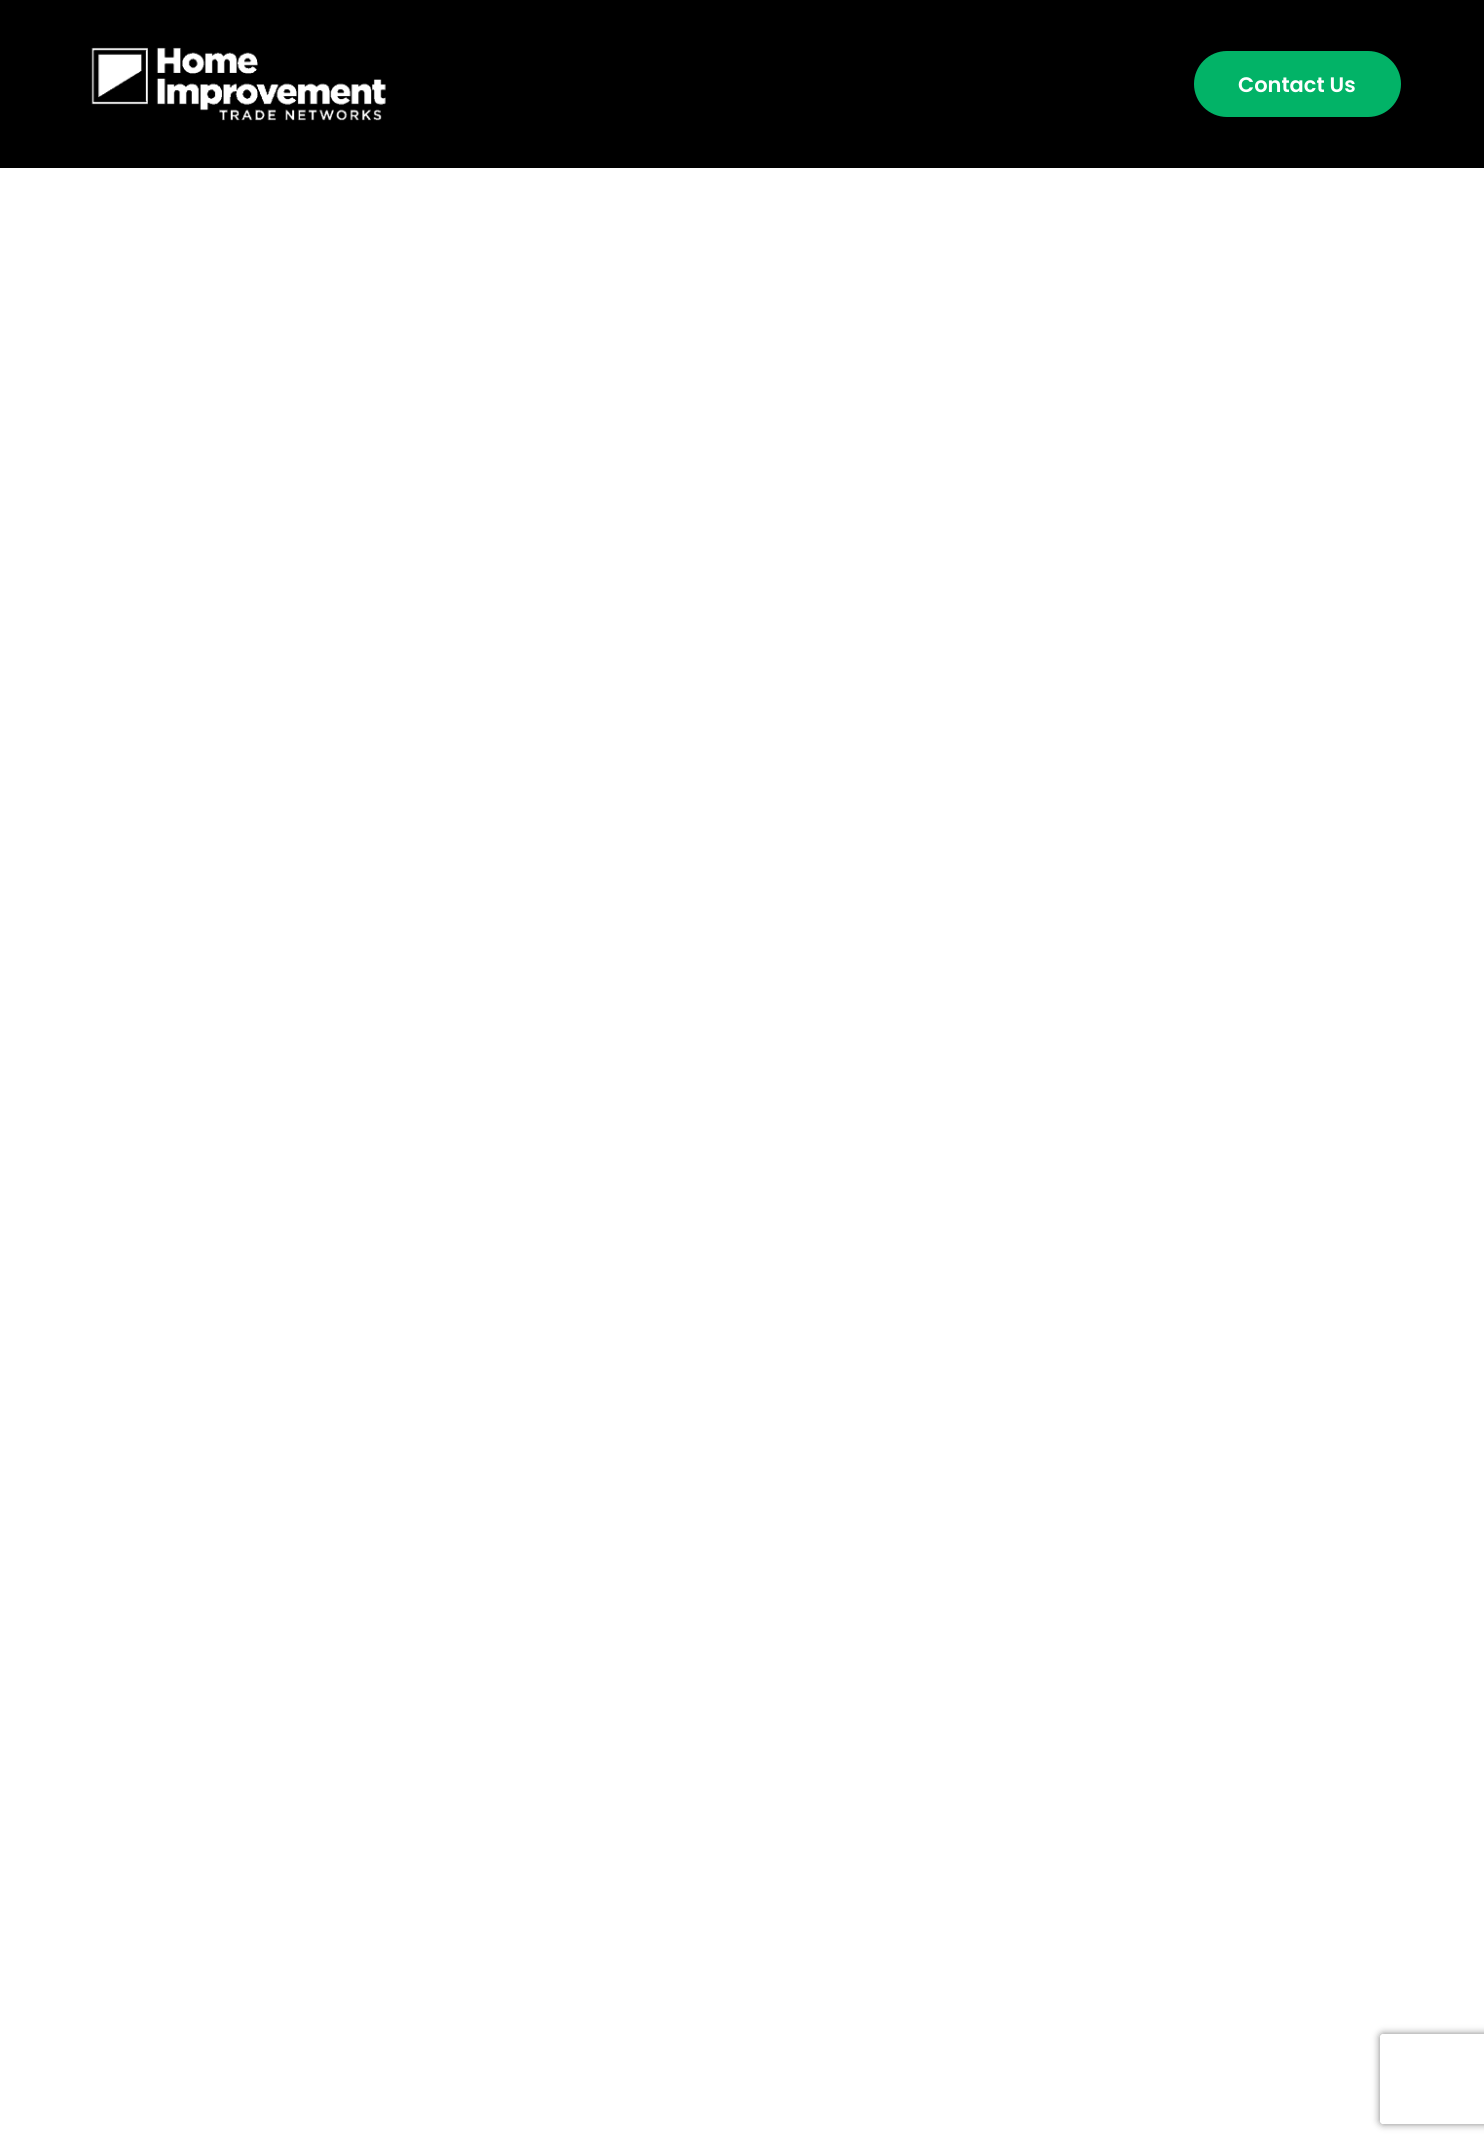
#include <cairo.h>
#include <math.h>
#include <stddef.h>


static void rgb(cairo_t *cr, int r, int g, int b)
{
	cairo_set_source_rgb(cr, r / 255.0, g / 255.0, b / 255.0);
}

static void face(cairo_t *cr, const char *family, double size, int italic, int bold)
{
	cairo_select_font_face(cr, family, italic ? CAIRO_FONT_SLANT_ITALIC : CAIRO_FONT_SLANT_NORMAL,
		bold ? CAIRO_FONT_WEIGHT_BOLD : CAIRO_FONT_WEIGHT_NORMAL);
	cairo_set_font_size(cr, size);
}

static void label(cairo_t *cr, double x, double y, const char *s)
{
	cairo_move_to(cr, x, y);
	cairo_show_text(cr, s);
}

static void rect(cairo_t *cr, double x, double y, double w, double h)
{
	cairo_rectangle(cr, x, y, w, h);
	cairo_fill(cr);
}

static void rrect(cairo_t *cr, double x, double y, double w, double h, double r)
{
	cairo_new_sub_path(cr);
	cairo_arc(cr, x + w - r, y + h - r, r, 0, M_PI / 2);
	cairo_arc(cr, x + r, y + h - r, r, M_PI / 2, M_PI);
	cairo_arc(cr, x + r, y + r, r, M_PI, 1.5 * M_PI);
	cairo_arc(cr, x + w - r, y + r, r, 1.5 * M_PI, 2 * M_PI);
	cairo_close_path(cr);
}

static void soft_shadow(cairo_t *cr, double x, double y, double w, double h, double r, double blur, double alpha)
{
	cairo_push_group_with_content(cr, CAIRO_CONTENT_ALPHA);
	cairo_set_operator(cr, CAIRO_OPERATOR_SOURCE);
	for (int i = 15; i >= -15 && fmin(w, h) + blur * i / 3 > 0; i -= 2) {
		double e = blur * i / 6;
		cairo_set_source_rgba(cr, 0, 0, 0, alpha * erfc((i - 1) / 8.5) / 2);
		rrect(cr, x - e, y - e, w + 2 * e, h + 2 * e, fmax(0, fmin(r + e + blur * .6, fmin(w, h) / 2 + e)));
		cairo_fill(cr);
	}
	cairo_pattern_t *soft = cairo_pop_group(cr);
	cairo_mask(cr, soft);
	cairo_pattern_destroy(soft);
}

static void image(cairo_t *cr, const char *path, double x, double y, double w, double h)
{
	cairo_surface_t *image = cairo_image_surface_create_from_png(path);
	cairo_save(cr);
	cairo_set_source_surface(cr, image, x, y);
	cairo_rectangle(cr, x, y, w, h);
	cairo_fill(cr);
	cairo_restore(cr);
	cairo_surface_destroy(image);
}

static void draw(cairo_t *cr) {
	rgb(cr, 255, 255, 255);
	cairo_paint(cr);
	rgb(cr, 0, 0, 0);
	rect(cr, 0, 0, 1484, 168);
	image(cr, "image0.png", 91, 47, 295, 74);
	rgb(cr, 2, 179, 103);
	rrect(cr, 1194, 51, 207, 66, 33);
	cairo_fill(cr);
	face(cr, "Poppins SemiBold", 21, 0, 0);
	rgb(cr, 255, 255, 255);
	label(cr, 1238, 92, "Contact Us");
	cairo_save(cr);
	cairo_set_fill_rule(cr, CAIRO_FILL_RULE_EVEN_ODD);
	cairo_new_path(cr);
	cairo_move_to(cr, 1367, 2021);
	cairo_line_to(cr, 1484, 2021);
	cairo_line_to(cr, 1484, 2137);
	cairo_line_to(cr, 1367, 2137);
	cairo_close_path(cr);
	cairo_move_to(cr, 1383, 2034);
	cairo_line_to(cr, 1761, 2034);
	cairo_curve_to(cr, 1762.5, 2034, 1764, 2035.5, 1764, 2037);
	cairo_line_to(cr, 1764, 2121);
	cairo_curve_to(cr, 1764, 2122.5, 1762.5, 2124, 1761, 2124);
	cairo_line_to(cr, 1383, 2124);
	cairo_curve_to(cr, 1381.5, 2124, 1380, 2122.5, 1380, 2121);
	cairo_line_to(cr, 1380, 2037);
	cairo_curve_to(cr, 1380, 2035.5, 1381.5, 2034, 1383, 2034);
	cairo_close_path(cr);
	cairo_clip(cr);
	rgb(cr, 128, 128, 128);
	soft_shadow(cr, 1380, 2034, 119, 90, 3, 4, 1);
	cairo_restore(cr);
}

int main(void) {
	cairo_surface_t *surface = cairo_image_surface_create(CAIRO_FORMAT_RGB24, 1484, 2145);
	cairo_t *cr = cairo_create(surface);
	cairo_font_options_t *options = cairo_font_options_create();
	cairo_font_options_set_hint_metrics(options, CAIRO_HINT_METRICS_OFF);
	cairo_font_options_set_hint_style(options, CAIRO_HINT_STYLE_NONE);
	cairo_set_font_options(cr, options);
	cairo_set_miter_limit(cr, 4);
	draw(cr);
	cairo_surface_write_to_png(surface, "render.png");
	cairo_font_options_destroy(options);
	cairo_destroy(cr);
	cairo_surface_destroy(surface);
	return 0;
}
